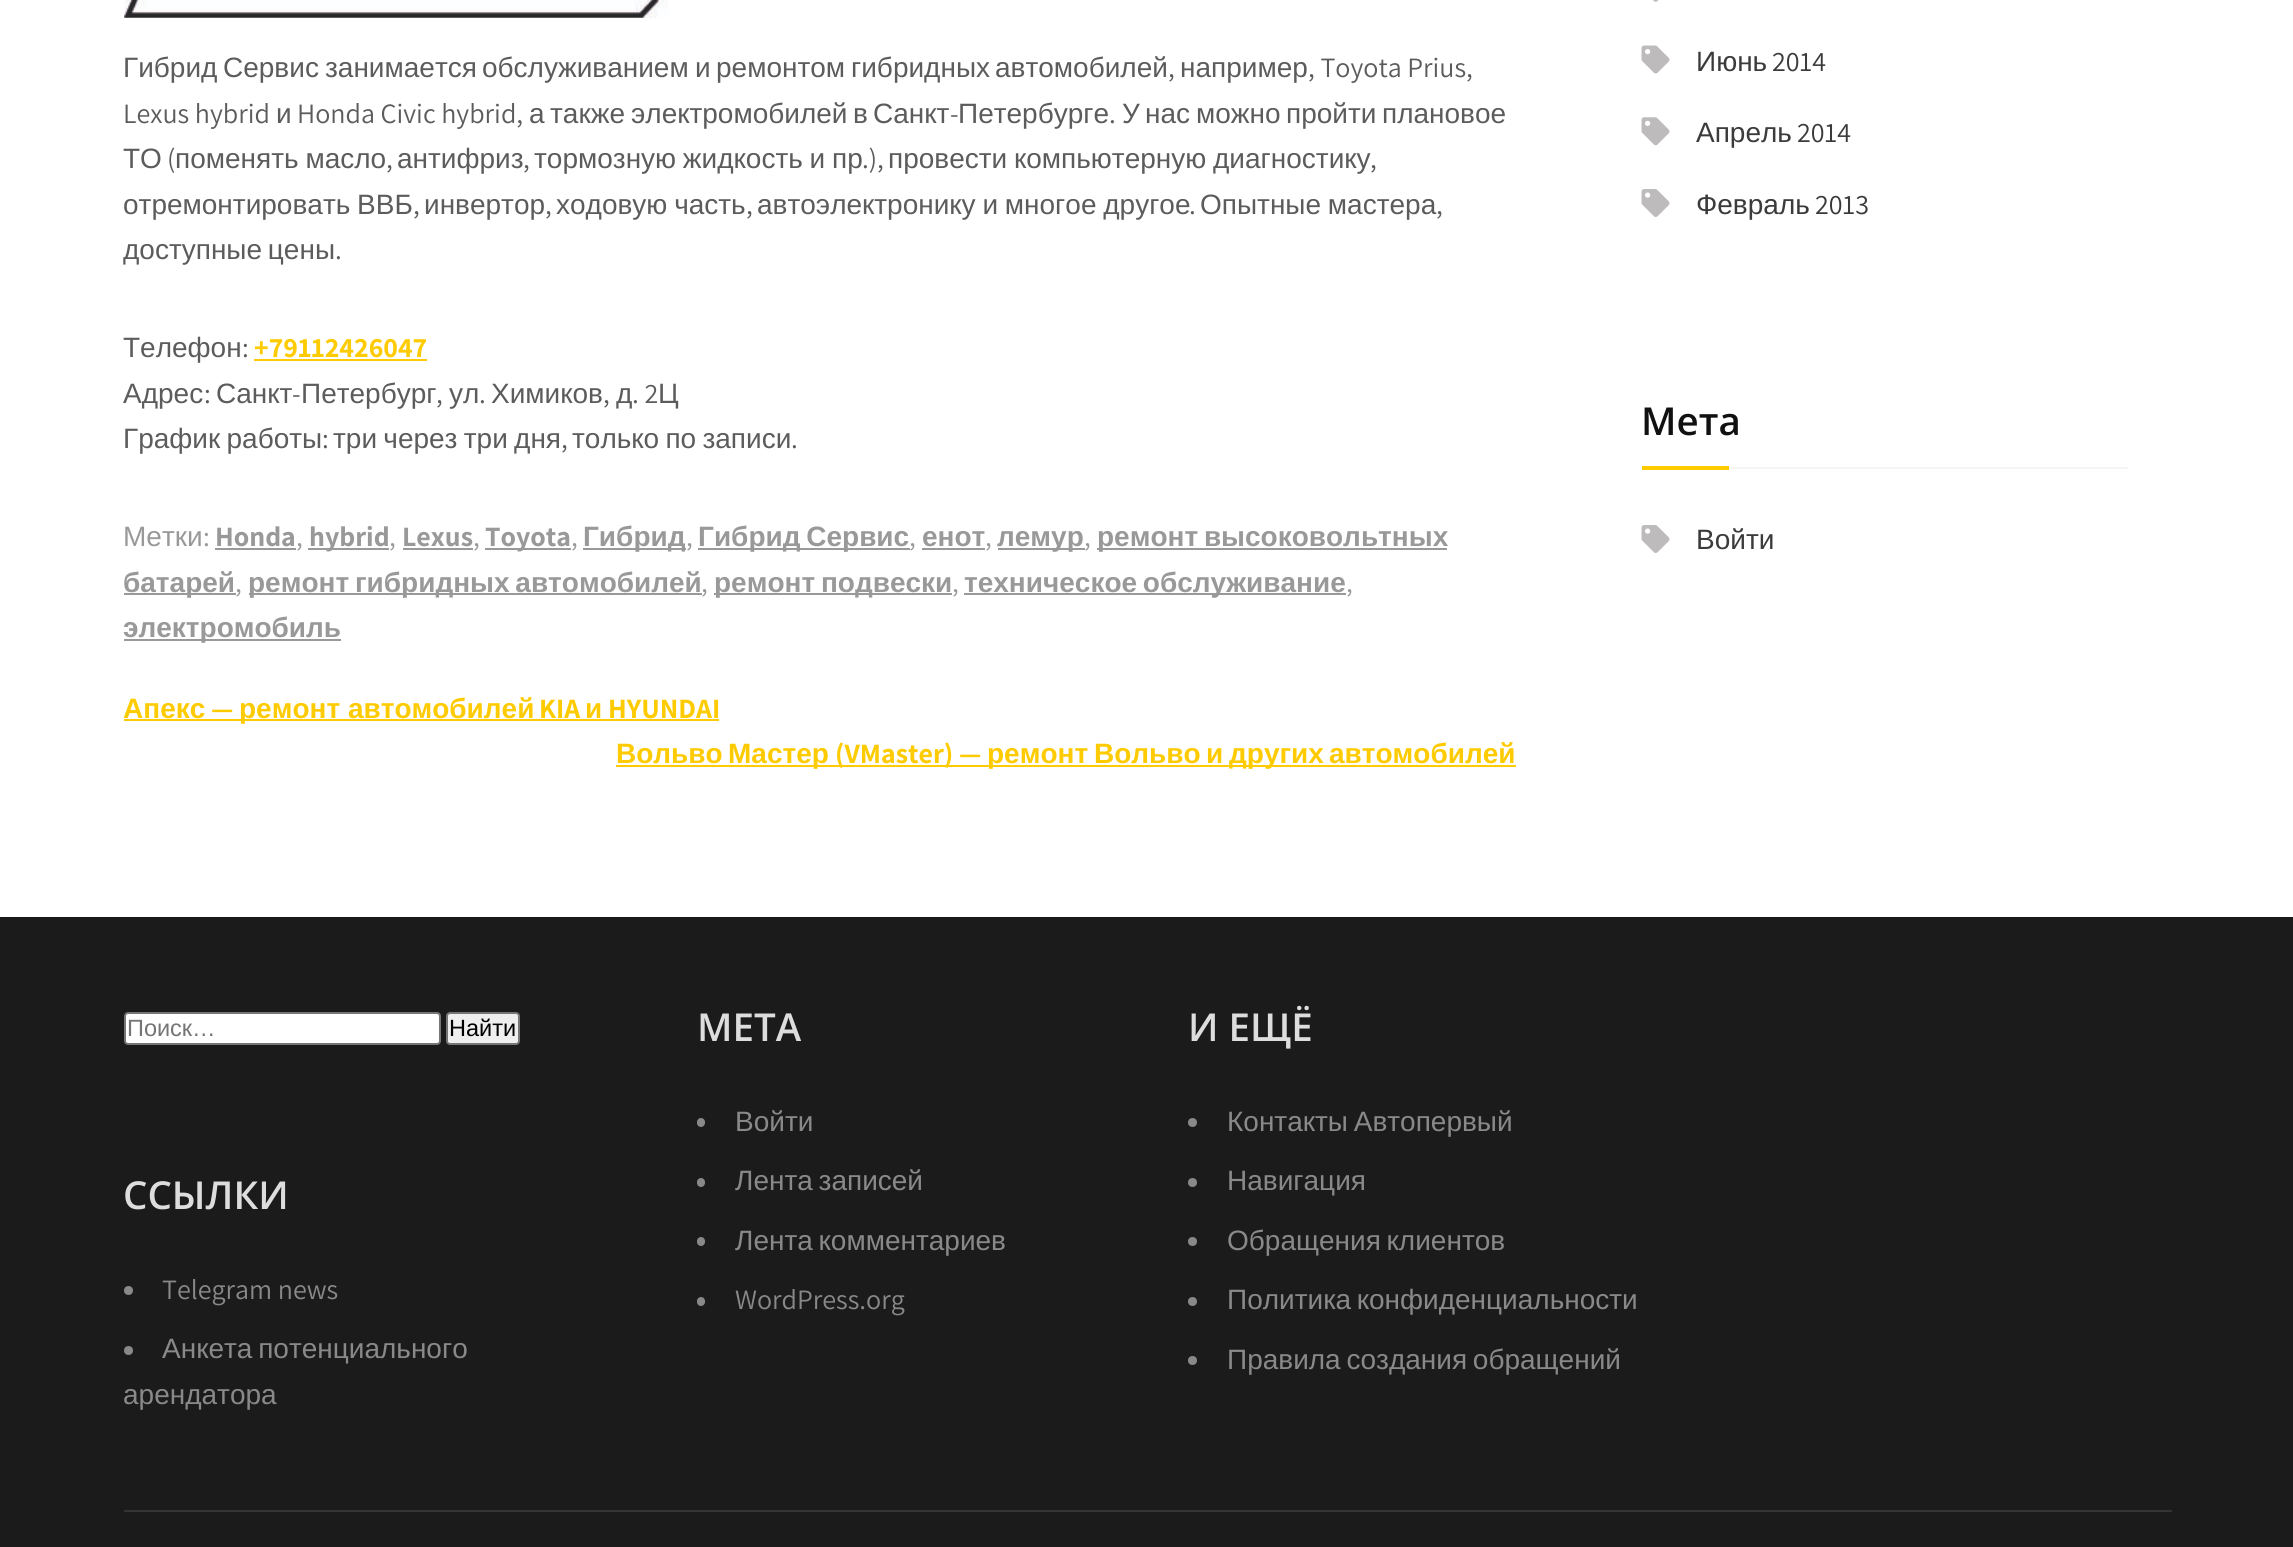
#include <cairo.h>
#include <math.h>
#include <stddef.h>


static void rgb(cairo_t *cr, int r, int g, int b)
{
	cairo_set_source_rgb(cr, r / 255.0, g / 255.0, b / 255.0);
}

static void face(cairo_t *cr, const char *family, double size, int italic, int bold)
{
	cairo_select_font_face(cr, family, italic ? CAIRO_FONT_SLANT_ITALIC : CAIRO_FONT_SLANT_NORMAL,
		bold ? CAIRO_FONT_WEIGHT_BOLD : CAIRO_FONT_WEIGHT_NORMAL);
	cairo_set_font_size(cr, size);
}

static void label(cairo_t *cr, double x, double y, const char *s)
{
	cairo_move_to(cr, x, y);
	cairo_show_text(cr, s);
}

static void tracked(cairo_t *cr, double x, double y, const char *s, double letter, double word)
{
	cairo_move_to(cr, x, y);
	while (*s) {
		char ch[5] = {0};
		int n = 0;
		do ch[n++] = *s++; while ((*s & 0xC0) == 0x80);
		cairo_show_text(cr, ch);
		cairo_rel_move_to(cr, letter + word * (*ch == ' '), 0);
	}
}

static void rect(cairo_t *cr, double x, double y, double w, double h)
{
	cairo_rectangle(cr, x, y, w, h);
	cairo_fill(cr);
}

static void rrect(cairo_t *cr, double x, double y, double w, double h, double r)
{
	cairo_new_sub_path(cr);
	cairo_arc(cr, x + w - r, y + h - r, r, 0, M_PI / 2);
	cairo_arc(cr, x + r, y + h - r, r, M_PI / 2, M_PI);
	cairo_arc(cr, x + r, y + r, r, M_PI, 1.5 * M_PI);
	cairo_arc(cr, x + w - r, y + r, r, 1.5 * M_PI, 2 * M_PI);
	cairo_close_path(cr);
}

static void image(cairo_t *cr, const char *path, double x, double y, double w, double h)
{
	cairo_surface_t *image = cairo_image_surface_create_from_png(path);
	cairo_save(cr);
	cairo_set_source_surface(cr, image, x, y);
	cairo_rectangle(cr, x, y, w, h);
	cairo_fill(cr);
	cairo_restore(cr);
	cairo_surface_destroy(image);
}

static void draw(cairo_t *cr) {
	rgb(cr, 255, 255, 255);
	cairo_paint(cr);
	image(cr, "image0.png", 124, 0, 544, 18);
	face(cr, "Liberation Sans", 28, 0, 0);
	rgb(cr, 92, 92, 92);
	label(cr, 123, 77, "Гибрид");
	label(cr, 223, 77, "Сервис");
	label(cr, 325, 77, "занимается");
	label(cr, 482, 77, "обслуживанием");
	label(cr, 695, 77, "и");
	label(cr, 716, 77, "ремонтом");
	label(cr, 851, 77, "гибридных");
	label(cr, 995, 77, "автомобилей");
	label(cr, 1180, 77, "например");
	face(cr, "Assistant", 28, 0, 0);
	label(cr, 1308, 77, ", Toyota Prius,");
	label(cr, 1168, 77, ",");
	label(cr, 123, 123, "Lexus hybrid");
	face(cr, "Liberation Sans", 28, 0, 0);
	label(cr, 276, 123, "и");
	face(cr, "Assistant", 28, 0, 0);
	label(cr, 297, 123, "Honda Civic hybrid,");
	face(cr, "Liberation Sans", 28, 0, 0);
	label(cr, 529, 123, "а");
	label(cr, 550, 123, "также");
	label(cr, 631, 123, "электромобилей");
	label(cr, 853, 123, "в");
	label(cr, 873, 123, "Санкт");
	face(cr, "Assistant", 28, 0, 0);
	label(cr, 950, 123, "-");
	face(cr, "Liberation Sans", 28, 0, 0);
	label(cr, 958, 123, "Петербурге");
	label(cr, 1122, 123, "У");
	label(cr, 1145, 123, "нас");
	label(cr, 1196, 123, "можно");
	label(cr, 1286, 123, "пройти");
	label(cr, 1382, 123, "плановое");
	face(cr, "Assistant", 28, 0, 0);
	label(cr, 1109, 123, ".");
	face(cr, "Liberation Sans", 28, 0, 0);
	label(cr, 123, 168, "ТО");
	face(cr, "Assistant", 28, 0, 0);
	label(cr, 167, 168, "(");
	face(cr, "Liberation Sans", 28, 0, 0);
	tracked(cr, 175, 168, "поменять масло", 0, -1);
	face(cr, "Assistant", 28, 0, 0);
	label(cr, 386, 168, ",");
	face(cr, "Liberation Sans", 28, 0, 0);
	label(cr, 397, 168, "антифриз");
	face(cr, "Assistant", 28, 0, 0);
	label(cr, 523, 168, ",");
	face(cr, "Liberation Sans", 28, 0, 0);
	tracked(cr, 534, 168, "тормозную жидкость и пр", 0, -1);
	face(cr, "Assistant", 28, 0, 0);
	label(cr, 862, 168, ".),");
	face(cr, "Liberation Sans", 28, 0, 0);
	tracked(cr, 888, 168, "провести компьютерную диагностику", 0, -1);
	face(cr, "Assistant", 28, 0, 0);
	label(cr, 1370, 168, ",");
	face(cr, "Liberation Sans", 28, 0, 0);
	tracked(cr, 123, 214, "отремонтировать ВВБ", 0, -1);
	face(cr, "Assistant", 28, 0, 0);
	label(cr, 413, 214, ",");
	face(cr, "Liberation Sans", 28, 0, 0);
	label(cr, 424, 214, "инвертор");
	face(cr, "Assistant", 28, 0, 0);
	label(cr, 545, 214, ",");
	face(cr, "Liberation Sans", 28, 0, 0);
	tracked(cr, 556, 214, "ходовую часть", 0, -1);
	face(cr, "Assistant", 28, 0, 0);
	label(cr, 746, 214, ",");
	face(cr, "Liberation Sans", 28, 0, 0);
	tracked(cr, 757, 214, "автоэлектронику и многое другое", 0, -1);
	face(cr, "Assistant", 28, 0, 0);
	label(cr, 1189, 214, ".");
	face(cr, "Liberation Sans", 28, 0, 0);
	tracked(cr, 1200, 214, "Опытные мастера", 0, -1);
	face(cr, "Assistant", 28, 0, 0);
	label(cr, 1436, 214, ",");
	face(cr, "Liberation Sans", 28, 0, 0);
	tracked(cr, 123, 259, "доступные цены", 0, -2);
	face(cr, "Assistant", 28, 0, 0);
	label(cr, 335, 259, ".");
	face(cr, "Liberation Sans", 28, 0, 0);
	label(cr, 123, 357, "Телефон");
	face(cr, "Assistant", 28, 0, 0);
	label(cr, 242, 357, ":");
	face(cr, "Assistant", 28, 0, 1);
	rgb(cr, 254, 202, 0);
	label(cr, 254, 357, "+79112426047");
	rect(cr, 254, 359, 173, 2);
	face(cr, "Liberation Sans", 28, 0, 0);
	rgb(cr, 92, 92, 92);
	label(cr, 123, 403, "Адрес");
	face(cr, "Assistant", 28, 0, 0);
	label(cr, 204, 403, ":");
	face(cr, "Liberation Sans", 28, 0, 0);
	label(cr, 216, 403, "Санкт");
	face(cr, "Assistant", 28, 0, 0);
	label(cr, 292, 403, "-");
	face(cr, "Liberation Sans", 28, 0, 0);
	label(cr, 301, 403, "Петербург");
	label(cr, 449, 403, "ул");
	label(cr, 491, 403, "Химиков");
	label(cr, 616, 403, "д");
	face(cr, "Assistant", 28, 0, 0);
	label(cr, 632, 403, ". 2");
	face(cr, "Liberation Sans", 28, 0, 0);
	label(cr, 658, 403, "Ц");
	face(cr, "Assistant", 28, 0, 0);
	label(cr, 436, 403, ",");
	label(cr, 479, 403, ".");
	label(cr, 603, 403, ",");
	face(cr, "Liberation Sans", 28, 0, 0);
	tracked(cr, 123, 448, "График работы", 0, -1.5);
	face(cr, "Assistant", 28, 0, 0);
	label(cr, 322, 448, ":");
	face(cr, "Liberation Sans", 28, 0, 0);
	tracked(cr, 333, 448, "три через три дня", 0, -1.5);
	face(cr, "Assistant", 28, 0, 0);
	label(cr, 561, 448, ",");
	face(cr, "Liberation Sans", 28, 0, 0);
	tracked(cr, 572, 448, "только по записи", 0, -1.5);
	face(cr, "Assistant", 28, 0, 0);
	label(cr, 791, 448, ".");
	face(cr, "Liberation Sans", 28, 0, 0);
	rgb(cr, 153, 153, 153);
	label(cr, 123, 546, "Метки");
	face(cr, "Assistant", 28, 0, 0);
	label(cr, 203, 546, ":");
	face(cr, "Assistant", 28, 0, 1);
	label(cr, 215, 546, "Honda");
	rect(cr, 215, 548, 81, 2);
	face(cr, "Assistant", 28, 0, 0);
	label(cr, 296, 546, ",");
	rect(cr, 308, 548, 81, 2);
	face(cr, "Assistant", 28, 0, 1);
	label(cr, 309, 546, "hybrid");
	face(cr, "Assistant", 28, 0, 0);
	label(cr, 389, 546, ",");
	face(cr, "Assistant", 28, 0, 1);
	label(cr, 402, 546, "Lexus");
	rect(cr, 403, 548, 70, 2);
	face(cr, "Assistant", 28, 0, 0);
	label(cr, 473, 546, ",");
	rect(cr, 485, 548, 86, 2);
	face(cr, "Assistant", 28, 0, 1);
	label(cr, 485, 546, "Toyota");
	face(cr, "Assistant", 28, 0, 0);
	label(cr, 571, 546, ",");
	rect(cr, 583, 548, 103, 2);
	face(cr, "Liberation Sans", 28, 0, 1);
	label(cr, 583, 546, "Гибрид");
	face(cr, "Assistant", 28, 0, 0);
	label(cr, 686, 546, ",");
	rect(cr, 698, 548, 212, 2);
	face(cr, "Liberation Sans", 28, 0, 1);
	tracked(cr, 698, 546, "Гибрид Сервис", 0, -2);
	face(cr, "Assistant", 28, 0, 0);
	label(cr, 909, 546, ",");
	face(cr, "Liberation Sans", 28, 0, 1);
	label(cr, 922, 546, "енот");
	rect(cr, 922, 548, 63, 2);
	face(cr, "Assistant", 28, 0, 0);
	label(cr, 985, 546, ",");
	rect(cr, 998, 548, 87, 2);
	face(cr, "Liberation Sans", 28, 0, 1);
	label(cr, 997, 546, "лемур");
	face(cr, "Assistant", 28, 0, 0);
	label(cr, 1084, 546, ",");
	rect(cr, 1097, 548, 350, 2);
	face(cr, "Liberation Sans", 28, 0, 1);
	tracked(cr, 1097, 546, "ремонт высоковольтных", 0, -2);
	rect(cr, 124, 593, 112, 2);
	label(cr, 123, 592, "батарей");
	face(cr, "Assistant", 28, 0, 0);
	label(cr, 235, 592, ",");
	rect(cr, 249, 593, 453, 2);
	face(cr, "Liberation Sans", 28, 0, 1);
	tracked(cr, 248, 592, "ремонт гибридных автомобилей", 0, -2);
	face(cr, "Assistant", 28, 0, 0);
	label(cr, 701, 592, ",");
	rect(cr, 714, 593, 238, 2);
	face(cr, "Liberation Sans", 28, 0, 1);
	tracked(cr, 714, 592, "ремонт подвески", 0, -2);
	face(cr, "Assistant", 28, 0, 0);
	label(cr, 952, 592, ",");
	rect(cr, 964, 593, 382, 2);
	face(cr, "Liberation Sans", 28, 0, 1);
	tracked(cr, 964, 592, "техническое обслуживание", 0, -2);
	face(cr, "Assistant", 28, 0, 0);
	label(cr, 1346, 592, ",");
	rect(cr, 124, 639, 217, 2);
	face(cr, "Liberation Sans", 28, 0, 1);
	label(cr, 123, 637, "электромобиль");
	rgb(cr, 254, 202, 0);
	label(cr, 123, 718, "Апекс");
	face(cr, "Assistant", 28, 0, 1);
	label(cr, 211, 718, "—");
	rect(cr, 124, 719, 595, 2);
	face(cr, "Liberation Sans", 28, 0, 1);
	label(cr, 239, 718, "ремонт автомобилей");
	face(cr, "Assistant", 28, 0, 1);
	label(cr, 539, 718, "KIA");
	face(cr, "Liberation Sans", 28, 0, 1);
	label(cr, 585, 718, "и");
	face(cr, "Assistant", 28, 0, 1);
	label(cr, 608, 718, "HYUNDAI");
	face(cr, "Liberation Sans", 28, 0, 1);
	label(cr, 616, 763, "Вольво");
	rect(cr, 616, 765, 900, 2);
	label(cr, 728, 763, "Мастер");
	face(cr, "Assistant", 28, 0, 1);
	label(cr, 835, 763, "(VMaster) —");
	face(cr, "Liberation Sans", 28, 0, 1);
	label(cr, 987, 763, "ремонт");
	label(cr, 1094, 763, "Вольво");
	label(cr, 1206, 763, "и");
	label(cr, 1229, 763, "других");
	label(cr, 1329, 763, "автомобилей");
	image(cr, "image1.png", 1653, 0, 6, 2);
	image(cr, "image2.png", 1641, 45, 29, 29);
	face(cr, "Liberation Sans", 28, 0, 0);
	rgb(cr, 59, 59, 59);
	label(cr, 1696, 71, "Июнь");
	face(cr, "Assistant", 28, 0, 0);
	label(cr, 1772, 71, "2014");
	image(cr, "image3.png", 1641, 117, 29, 29);
	face(cr, "Liberation Sans", 28, 0, 0);
	label(cr, 1696, 142, "Апрель");
	face(cr, "Assistant", 28, 0, 0);
	label(cr, 1797, 142, "2014");
	image(cr, "image4.png", 1641, 189, 29, 28);
	face(cr, "Liberation Sans", 28, 0, 0);
	label(cr, 1696, 214, "Февраль");
	face(cr, "Assistant", 28, 0, 0);
	label(cr, 1815, 214, "2013");
	rgb(cr, 245, 245, 245);
	rect(cr, 1729, 467, 399, 2);
	face(cr, "Open Sans SemiBold", 38.5, 0, 0);
	rgb(cr, 17, 17, 17);
	label(cr, 1641, 435, "Мета");
	rgb(cr, 254, 202, 0);
	rect(cr, 1642, 466, 87, 4);
	image(cr, "image4.png", 1641, 525, 29, 28);
	face(cr, "Liberation Sans", 28, 0, 0);
	rgb(cr, 59, 59, 59);
	label(cr, 1696, 549, "Войти");
	rgb(cr, 27, 27, 27);
	rect(cr, 0, 917, 2293, 630);
	rgb(cr, 255, 255, 255);
	rrect(cr, 125, 1013, 315, 31, 3);
	cairo_fill_preserve(cr);
	rgb(cr, 118, 118, 118);
	cairo_stroke(cr);
	face(cr, "Liberation Sans", 23.5, 0, 0);
	rgb(cr, 117, 117, 117);
	label(cr, 127, 1036, "Поиск…");
	rgb(cr, 239, 239, 239);
	rrect(cr, 447, 1013, 72, 31, 3);
	cairo_fill_preserve(cr);
	rgb(cr, 118, 118, 118);
	cairo_stroke(cr);
	rgb(cr, 0, 0, 0);
	label(cr, 449, 1036, "Найти");
	face(cr, "Open Sans SemiBold", 38.5, 0, 0);
	rgb(cr, 221, 221, 221);
	label(cr, 123, 1209, "ССЫЛКИ");
	rgb(cr, 138, 137, 137);
	cairo_new_path(cr);
	cairo_arc(cr, 128.5, 1290.5, 4.5, 0, 2 * M_PI);
	cairo_fill(cr);
	face(cr, "Assistant", 28, 0, 0);
	label(cr, 162, 1299, "Telegram news");
	cairo_new_path(cr);
	cairo_arc(cr, 128.5, 1350.5, 4.5, 0, 2 * M_PI);
	cairo_fill(cr);
	face(cr, "Liberation Sans", 28, 0, 0);
	tracked(cr, 162, 1358, "Анкета потенциального", 0, -2);
	label(cr, 123, 1404, "арендатора");
	face(cr, "Open Sans SemiBold", 38.5, 0, 0);
	rgb(cr, 221, 221, 221);
	label(cr, 697, 1041, "МЕТА");
	rgb(cr, 138, 137, 137);
	rrect(cr, 697, 1118, 8, 9, 4);
	cairo_fill(cr);
	face(cr, "Liberation Sans", 28, 0, 0);
	label(cr, 735, 1131, "Войти");
	rrect(cr, 697, 1178, 8, 9, 4);
	cairo_fill(cr);
	tracked(cr, 735, 1190, "Лента записей", 0, -2);
	rrect(cr, 697, 1237, 8, 9, 4);
	cairo_fill(cr);
	tracked(cr, 735, 1250, "Лента комментариев", 0, -2);
	rrect(cr, 697, 1297, 8, 9, 4);
	cairo_fill(cr);
	face(cr, "Assistant", 28, 0, 0);
	label(cr, 735, 1309, "WordPress.org");
	face(cr, "Open Sans SemiBold", 38.5, 0, 0);
	rgb(cr, 221, 221, 221);
	label(cr, 1188, 1041, "И ЕЩЁ");
	rgb(cr, 138, 137, 137);
	cairo_new_path(cr);
	cairo_arc(cr, 1192.5, 1122.5, 4.5, 0, 2 * M_PI);
	cairo_fill(cr);
	face(cr, "Liberation Sans", 28, 0, 0);
	tracked(cr, 1227, 1131, "Контакты Автопервый", 0, -2);
	cairo_new_path(cr);
	cairo_arc(cr, 1192.5, 1182.5, 4.5, 0, 2 * M_PI);
	cairo_fill(cr);
	label(cr, 1227, 1190, "Навигация");
	cairo_new_path(cr);
	cairo_arc(cr, 1192.5, 1241.5, 4.5, 0, 2 * M_PI);
	cairo_fill(cr);
	tracked(cr, 1227, 1250, "Обращения клиентов", 0, -2);
	cairo_new_path(cr);
	cairo_arc(cr, 1192.5, 1301.5, 4.5, 0, 2 * M_PI);
	cairo_fill(cr);
	tracked(cr, 1227, 1309, "Политика конфиденциальности", 0, -2);
	cairo_new_path(cr);
	cairo_arc(cr, 1192.5, 1360.5, 4.5, 0, 2 * M_PI);
	cairo_fill(cr);
	tracked(cr, 1227, 1369, "Правила создания обращений", 0, -2);
	rgb(cr, 52, 52, 52);
	rect(cr, 124, 1510, 2048, 2);
}

int main(void) {
	cairo_surface_t *surface = cairo_image_surface_create(CAIRO_FORMAT_RGB24, 2293, 1547);
	cairo_t *cr = cairo_create(surface);
	cairo_font_options_t *options = cairo_font_options_create();
	cairo_font_options_set_hint_metrics(options, CAIRO_HINT_METRICS_OFF);
	cairo_font_options_set_hint_style(options, CAIRO_HINT_STYLE_NONE);
	cairo_set_font_options(cr, options);
	cairo_set_miter_limit(cr, 4);
	draw(cr);
	cairo_surface_write_to_png(surface, "render.png");
	cairo_font_options_destroy(options);
	cairo_destroy(cr);
	cairo_surface_destroy(surface);
	return 0;
}
